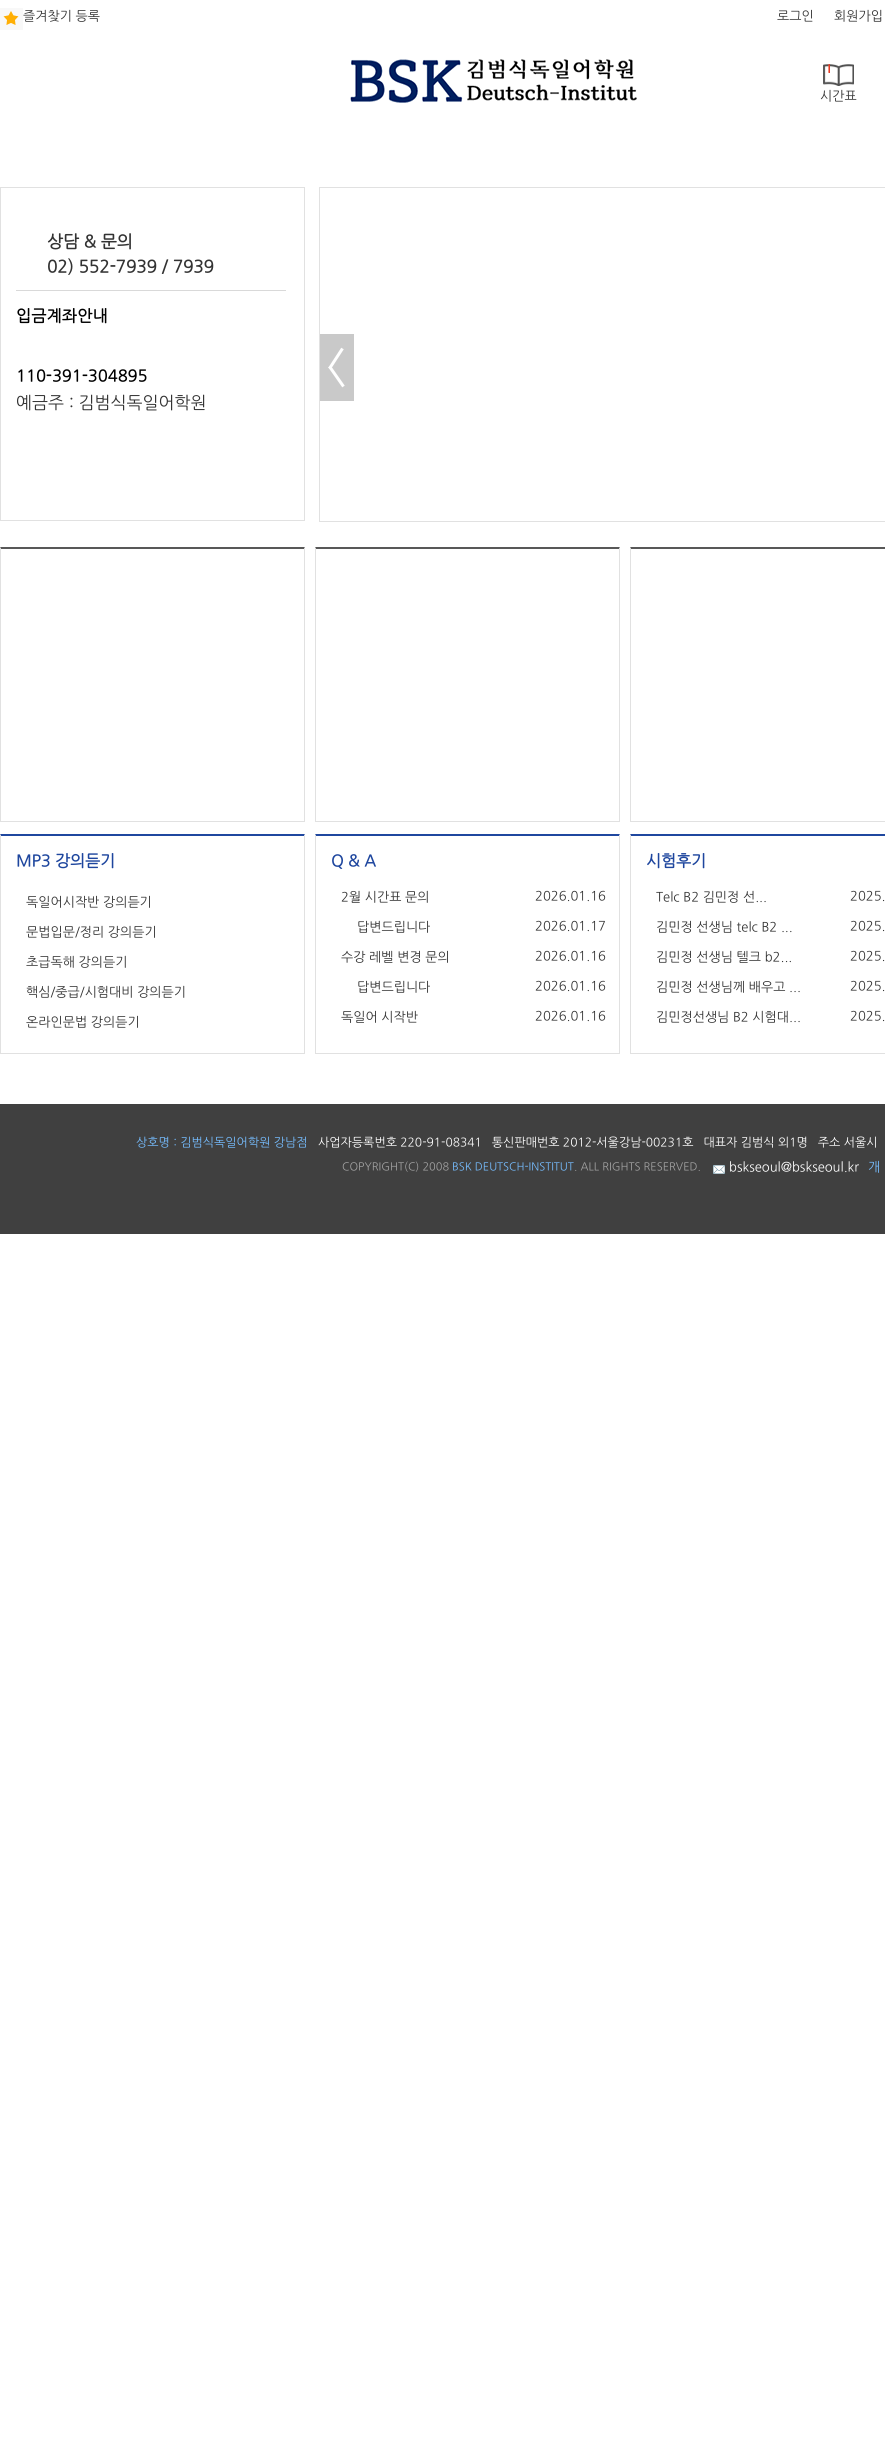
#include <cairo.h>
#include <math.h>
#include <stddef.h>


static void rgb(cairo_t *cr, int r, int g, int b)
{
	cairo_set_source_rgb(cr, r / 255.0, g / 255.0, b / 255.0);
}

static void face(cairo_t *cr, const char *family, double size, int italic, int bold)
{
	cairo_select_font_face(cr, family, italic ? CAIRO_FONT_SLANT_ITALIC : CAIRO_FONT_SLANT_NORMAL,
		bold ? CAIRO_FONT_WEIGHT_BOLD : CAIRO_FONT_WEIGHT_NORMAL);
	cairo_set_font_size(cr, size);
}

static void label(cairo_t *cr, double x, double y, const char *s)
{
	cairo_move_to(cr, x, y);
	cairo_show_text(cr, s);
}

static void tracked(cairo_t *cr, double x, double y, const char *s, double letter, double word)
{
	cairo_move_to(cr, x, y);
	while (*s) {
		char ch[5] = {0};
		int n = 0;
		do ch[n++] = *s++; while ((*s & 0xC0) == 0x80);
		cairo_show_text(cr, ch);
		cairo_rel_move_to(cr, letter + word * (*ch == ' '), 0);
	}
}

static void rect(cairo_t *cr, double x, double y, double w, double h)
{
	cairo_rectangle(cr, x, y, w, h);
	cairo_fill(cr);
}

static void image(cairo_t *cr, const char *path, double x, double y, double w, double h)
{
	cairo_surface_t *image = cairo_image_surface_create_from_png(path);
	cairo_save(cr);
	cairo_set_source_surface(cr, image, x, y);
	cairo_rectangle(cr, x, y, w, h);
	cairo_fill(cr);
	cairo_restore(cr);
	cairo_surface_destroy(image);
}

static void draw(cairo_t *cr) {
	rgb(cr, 255, 255, 255);
	cairo_paint(cr);
	image(cr, "image0.png", 0, 8, 23, 22);
	face(cr, "NanumGothic", 13, 0, 0);
	rgb(cr, 51, 51, 51);
	label(cr, 23, 20, "즐겨찾기 등록");
	label(cr, 777, 20, "로그인");
	label(cr, 834, 20, "회원가입");
	image(cr, "image1.png", 350, 59, 287, 44);
	image(cr, "image2.png", 823, 64, 31, 22);
	label(cr, 820, 100, "시간표");
	cairo_rectangle(cr, 0.5, 187.5, 304, 333);
	rgb(cr, 225, 225, 225);
	cairo_set_line_width(cr, 1);
	cairo_stroke(cr);
	face(cr, "NanumGothic", 17, 0, 1);
	rgb(cr, 51, 51, 51);
	label(cr, 47, 247, "상담 & 문의");
	label(cr, 47, 272, "02) 552-7939 / 7939");
	rgb(cr, 217, 217, 217);
	rect(cr, 16, 290, 270, 1);
	face(cr, "NanumGothic", 16, 0, 1);
	rgb(cr, 0, 0, 0);
	tracked(cr, 16, 321, "입금계좌안내", 0.25, 0);
	tracked(cr, 16, 381, "110-391-304895", 0.25, 0);
	face(cr, "NanumGothic", 17, 0, 0);
	rgb(cr, 51, 51, 51);
	label(cr, 16, 408, "예금주 : 김범식독일어학원");
	cairo_rectangle(cr, 319.5, 187.5, 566, 334);
	rgb(cr, 225, 225, 225);
	cairo_stroke(cr);
	image(cr, "image3.png", 320, 334, 34, 67);
	rgb(cr, 88, 88, 88);
	cairo_new_path(cr);
	cairo_move_to(cr, 0, 547);
	cairo_line_to(cr, 305, 547);
	cairo_line_to(cr, 304, 549);
	cairo_line_to(cr, 1, 549);
	cairo_close_path(cr);
	cairo_fill(cr);
	rgb(cr, 225, 225, 225);
	cairo_new_path(cr);
	cairo_move_to(cr, 305, 547);
	cairo_line_to(cr, 305, 822);
	cairo_line_to(cr, 304, 821);
	cairo_line_to(cr, 304, 549);
	cairo_close_path(cr);
	cairo_fill(cr);
	rect(cr, 0, 821, 305, 1);
	cairo_new_path(cr);
	cairo_move_to(cr, 0, 822);
	cairo_line_to(cr, 0, 547);
	cairo_line_to(cr, 1, 549);
	cairo_line_to(cr, 1, 821);
	cairo_close_path(cr);
	cairo_fill(cr);
	rgb(cr, 88, 88, 88);
	cairo_new_path(cr);
	cairo_move_to(cr, 315, 547);
	cairo_line_to(cr, 620, 547);
	cairo_line_to(cr, 619, 549);
	cairo_line_to(cr, 316, 549);
	cairo_close_path(cr);
	cairo_fill(cr);
	rgb(cr, 225, 225, 225);
	cairo_new_path(cr);
	cairo_move_to(cr, 620, 547);
	cairo_line_to(cr, 620, 822);
	cairo_line_to(cr, 619, 821);
	cairo_line_to(cr, 619, 549);
	cairo_close_path(cr);
	cairo_fill(cr);
	rect(cr, 315, 821, 305, 1);
	cairo_new_path(cr);
	cairo_move_to(cr, 315, 822);
	cairo_line_to(cr, 315, 547);
	cairo_line_to(cr, 316, 549);
	cairo_line_to(cr, 316, 821);
	cairo_close_path(cr);
	cairo_fill(cr);
	rgb(cr, 88, 88, 88);
	cairo_new_path(cr);
	cairo_move_to(cr, 630, 547);
	cairo_line_to(cr, 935, 547);
	cairo_line_to(cr, 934, 549);
	cairo_line_to(cr, 631, 549);
	cairo_close_path(cr);
	cairo_fill(cr);
	rgb(cr, 225, 225, 225);
	rect(cr, 630, 821, 255, 1);
	cairo_new_path(cr);
	cairo_move_to(cr, 630, 822);
	cairo_line_to(cr, 630, 547);
	cairo_line_to(cr, 631, 549);
	cairo_line_to(cr, 631, 821);
	cairo_close_path(cr);
	cairo_fill(cr);
	rgb(cr, 31, 71, 159);
	cairo_new_path(cr);
	cairo_move_to(cr, 0, 834);
	cairo_line_to(cr, 305, 834);
	cairo_line_to(cr, 304, 836);
	cairo_line_to(cr, 1, 836);
	cairo_close_path(cr);
	cairo_fill(cr);
	rgb(cr, 225, 225, 225);
	cairo_new_path(cr);
	cairo_move_to(cr, 305, 834);
	cairo_line_to(cr, 305, 1054);
	cairo_line_to(cr, 304, 1053);
	cairo_line_to(cr, 304, 836);
	cairo_close_path(cr);
	cairo_fill(cr);
	rect(cr, 0, 1053, 305, 1);
	cairo_new_path(cr);
	cairo_move_to(cr, 0, 1054);
	cairo_line_to(cr, 0, 834);
	cairo_line_to(cr, 1, 836);
	cairo_line_to(cr, 1, 1053);
	cairo_close_path(cr);
	cairo_fill(cr);
	face(cr, "NanumGothic", 16, 0, 1);
	rgb(cr, 30, 70, 158);
	label(cr, 16, 866, "MP3 강의듣기");
	face(cr, "NanumGothic", 13, 0, 0);
	rgb(cr, 51, 51, 51);
	label(cr, 26, 906, "독일어시작반 강의듣기");
	label(cr, 26, 936, "문법입문/정리 강의듣기");
	label(cr, 26, 966, "초급독해 강의듣기");
	label(cr, 26, 996, "핵심/중급/시험대비 강의듣기");
	label(cr, 26, 1026, "온라인문법 강의듣기");
	rgb(cr, 31, 71, 159);
	cairo_new_path(cr);
	cairo_move_to(cr, 315, 834);
	cairo_line_to(cr, 620, 834);
	cairo_line_to(cr, 619, 836);
	cairo_line_to(cr, 316, 836);
	cairo_close_path(cr);
	cairo_fill(cr);
	rgb(cr, 225, 225, 225);
	cairo_new_path(cr);
	cairo_move_to(cr, 620, 834);
	cairo_line_to(cr, 620, 1054);
	cairo_line_to(cr, 619, 1053);
	cairo_line_to(cr, 619, 836);
	cairo_close_path(cr);
	cairo_fill(cr);
	rect(cr, 315, 1053, 305, 1);
	cairo_new_path(cr);
	cairo_move_to(cr, 315, 1054);
	cairo_line_to(cr, 315, 834);
	cairo_line_to(cr, 316, 836);
	cairo_line_to(cr, 316, 1053);
	cairo_close_path(cr);
	cairo_fill(cr);
	face(cr, "NanumGothic", 16, 0, 1);
	rgb(cr, 30, 70, 158);
	label(cr, 331, 866, "Q & A");
	face(cr, "NanumGothic", 13, 0, 0);
	rgb(cr, 51, 51, 51);
	label(cr, 341, 901, "2월 시간표 문의");
	label(cr, 535, 900, "2026.01.16");
	label(cr, 357, 931, "답변드립니다");
	label(cr, 535, 930, "2026.01.17");
	label(cr, 341, 961, "수강 레벨 변경 문의");
	label(cr, 535, 960, "2026.01.16");
	label(cr, 357, 991, "답변드립니다");
	label(cr, 535, 990, "2026.01.16");
	label(cr, 341, 1021, "독일어 시작반");
	label(cr, 535, 1020, "2026.01.16");
	rgb(cr, 31, 71, 159);
	cairo_new_path(cr);
	cairo_move_to(cr, 630, 834);
	cairo_line_to(cr, 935, 834);
	cairo_line_to(cr, 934, 836);
	cairo_line_to(cr, 631, 836);
	cairo_close_path(cr);
	cairo_fill(cr);
	rgb(cr, 225, 225, 225);
	rect(cr, 630, 1053, 255, 1);
	cairo_new_path(cr);
	cairo_move_to(cr, 630, 1054);
	cairo_line_to(cr, 630, 834);
	cairo_line_to(cr, 631, 836);
	cairo_line_to(cr, 631, 1053);
	cairo_close_path(cr);
	cairo_fill(cr);
	face(cr, "NanumGothic", 16, 0, 1);
	rgb(cr, 30, 70, 158);
	label(cr, 646, 866, "시험후기");
	face(cr, "NanumGothic", 13, 0, 0);
	rgb(cr, 51, 51, 51);
	label(cr, 656, 901, "Telc B2 김민정 선...");
	label(cr, 850, 900, "2025.");
	label(cr, 656, 931, "김민정 선생님 telc B2 ...");
	label(cr, 850, 930, "2025.");
	label(cr, 656, 961, "김민정 선생님 텔크 b2...");
	label(cr, 850, 960, "2025.");
	label(cr, 656, 991, "김민정 선생님께 배우고 ...");
	label(cr, 850, 990, "2025.");
	label(cr, 656, 1021, "김민정선생님 B2 시험대...");
	label(cr, 850, 1020, "2025.");
	rgb(cr, 64, 64, 64);
	rect(cr, 0, 1104, 885, 130);
	face(cr, "NanumGothic", 12, 0, 0);
	rgb(cr, 118, 189, 255);
	label(cr, 136, 1146, "상호명 : 김범식독일어학원 강남점");
	rgb(cr, 255, 255, 255);
	label(cr, 318, 1146, "사업자등록번호 220-91-08341   통신판매번호 2012-서울강남-00231호   대표자 김범식 외1명   주소 서울시");
	face(cr, "NanumGothic", 11, 0, 0);
	rgb(cr, 163, 163, 163);
	label(cr, 342, 1170, "COPYRIGHT(C) 2008");
	rgb(cr, 118, 189, 255);
	label(cr, 452, 1170, "BSK DEUTSCH-INSTITUT");
	rgb(cr, 163, 163, 163);
	label(cr, 574, 1170, ". ALL RIGHTS RESERVED.");
	image(cr, "image4.png", 713, 1165, 12, 9);
	face(cr, "NanumGothic", 13, 0, 0);
	rgb(cr, 255, 255, 255);
	label(cr, 729, 1171, "bskseoul@bskseoul.kr");
	rgb(cr, 118, 189, 255);
	label(cr, 868, 1171, "개");
}

int main(void) {
	cairo_surface_t *surface = cairo_image_surface_create(CAIRO_FORMAT_RGB24, 885, 2461);
	cairo_t *cr = cairo_create(surface);
	cairo_font_options_t *options = cairo_font_options_create();
	cairo_font_options_set_hint_metrics(options, CAIRO_HINT_METRICS_OFF);
	cairo_font_options_set_hint_style(options, CAIRO_HINT_STYLE_NONE);
	cairo_set_font_options(cr, options);
	cairo_set_miter_limit(cr, 4);
	draw(cr);
	cairo_surface_write_to_png(surface, "render.png");
	cairo_font_options_destroy(options);
	cairo_destroy(cr);
	cairo_surface_destroy(surface);
	return 0;
}
